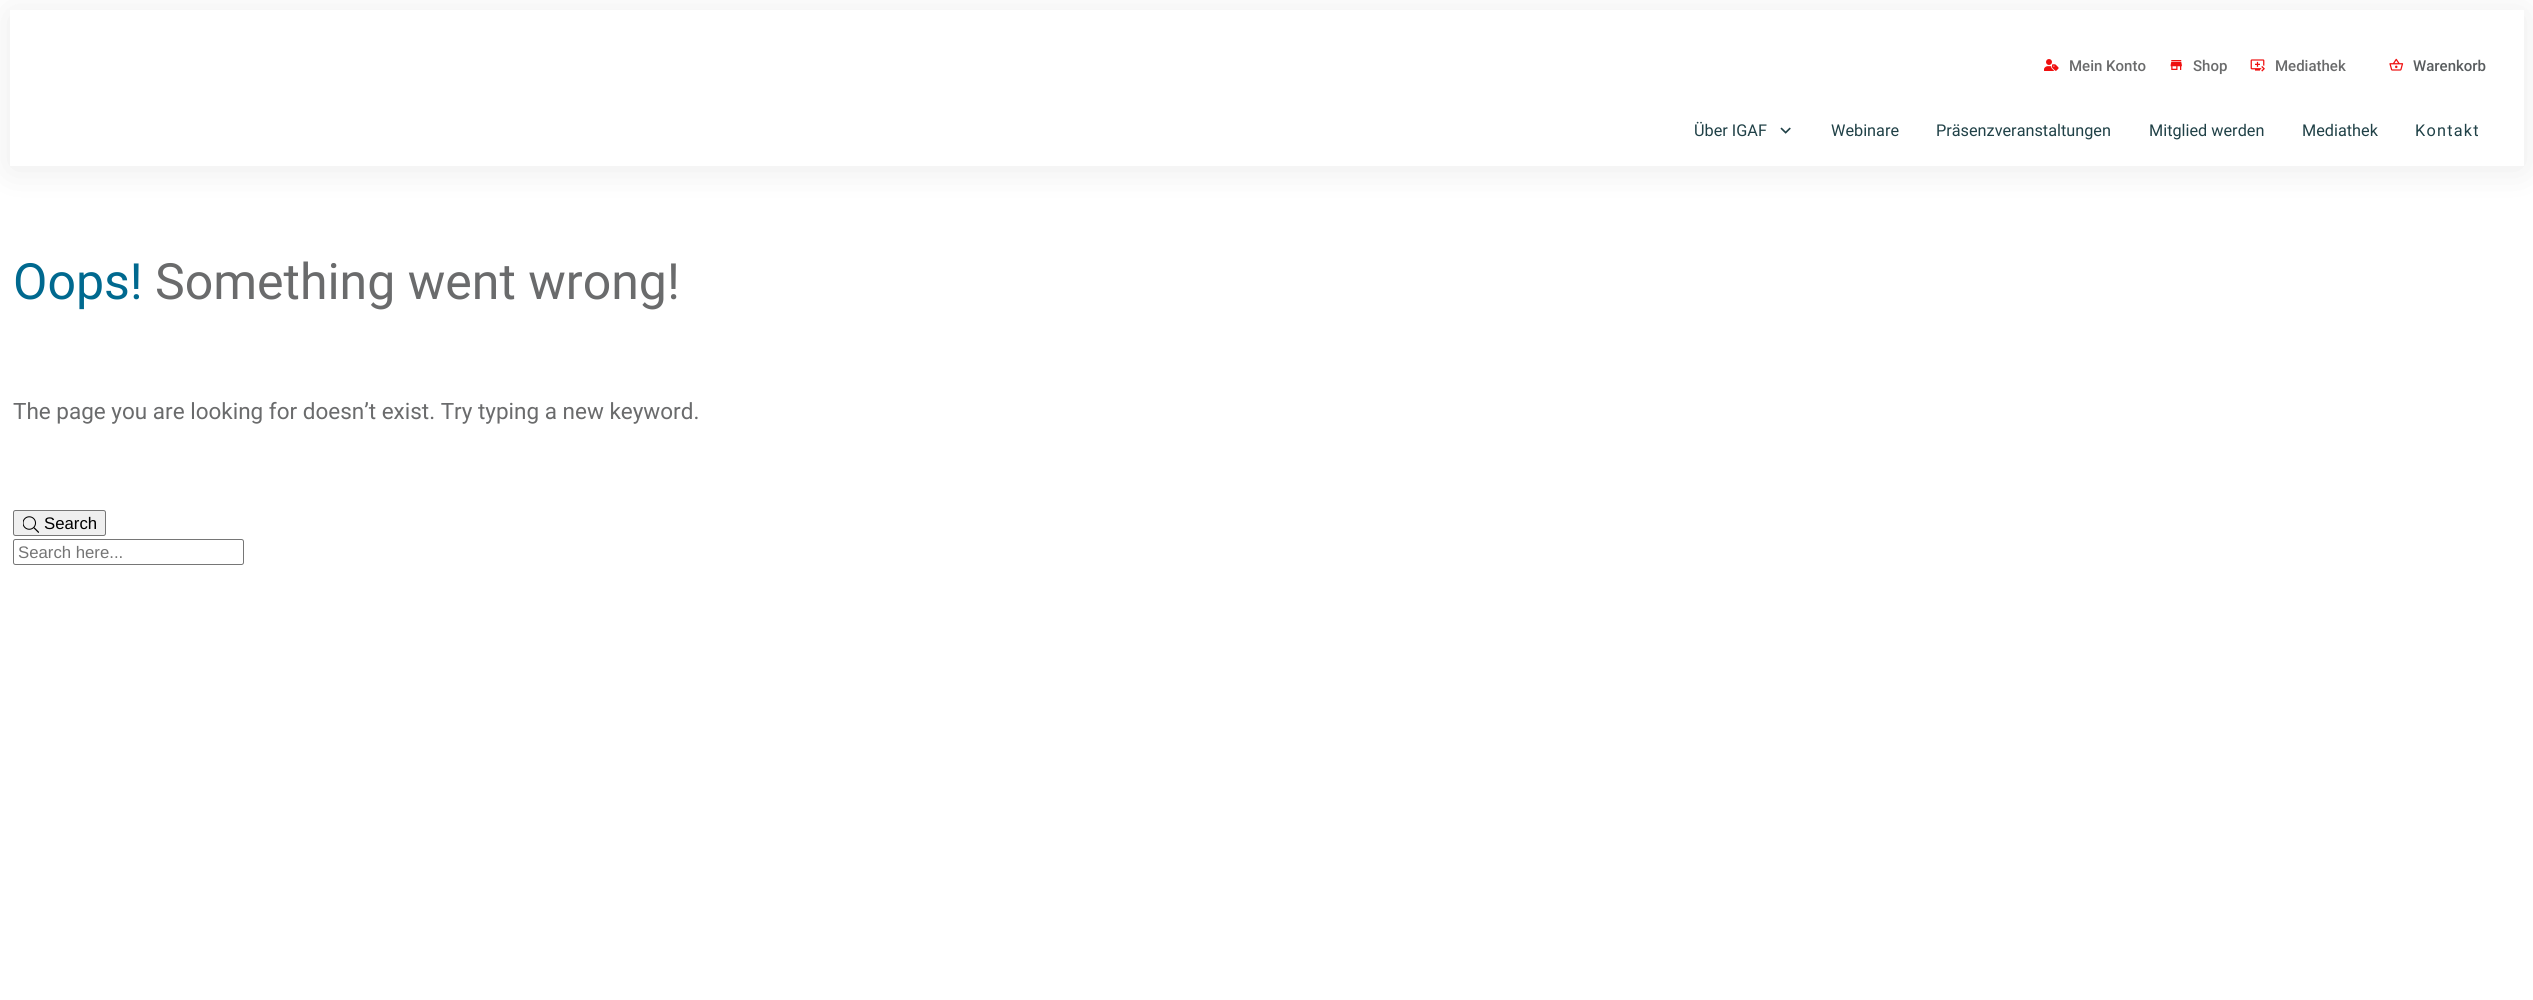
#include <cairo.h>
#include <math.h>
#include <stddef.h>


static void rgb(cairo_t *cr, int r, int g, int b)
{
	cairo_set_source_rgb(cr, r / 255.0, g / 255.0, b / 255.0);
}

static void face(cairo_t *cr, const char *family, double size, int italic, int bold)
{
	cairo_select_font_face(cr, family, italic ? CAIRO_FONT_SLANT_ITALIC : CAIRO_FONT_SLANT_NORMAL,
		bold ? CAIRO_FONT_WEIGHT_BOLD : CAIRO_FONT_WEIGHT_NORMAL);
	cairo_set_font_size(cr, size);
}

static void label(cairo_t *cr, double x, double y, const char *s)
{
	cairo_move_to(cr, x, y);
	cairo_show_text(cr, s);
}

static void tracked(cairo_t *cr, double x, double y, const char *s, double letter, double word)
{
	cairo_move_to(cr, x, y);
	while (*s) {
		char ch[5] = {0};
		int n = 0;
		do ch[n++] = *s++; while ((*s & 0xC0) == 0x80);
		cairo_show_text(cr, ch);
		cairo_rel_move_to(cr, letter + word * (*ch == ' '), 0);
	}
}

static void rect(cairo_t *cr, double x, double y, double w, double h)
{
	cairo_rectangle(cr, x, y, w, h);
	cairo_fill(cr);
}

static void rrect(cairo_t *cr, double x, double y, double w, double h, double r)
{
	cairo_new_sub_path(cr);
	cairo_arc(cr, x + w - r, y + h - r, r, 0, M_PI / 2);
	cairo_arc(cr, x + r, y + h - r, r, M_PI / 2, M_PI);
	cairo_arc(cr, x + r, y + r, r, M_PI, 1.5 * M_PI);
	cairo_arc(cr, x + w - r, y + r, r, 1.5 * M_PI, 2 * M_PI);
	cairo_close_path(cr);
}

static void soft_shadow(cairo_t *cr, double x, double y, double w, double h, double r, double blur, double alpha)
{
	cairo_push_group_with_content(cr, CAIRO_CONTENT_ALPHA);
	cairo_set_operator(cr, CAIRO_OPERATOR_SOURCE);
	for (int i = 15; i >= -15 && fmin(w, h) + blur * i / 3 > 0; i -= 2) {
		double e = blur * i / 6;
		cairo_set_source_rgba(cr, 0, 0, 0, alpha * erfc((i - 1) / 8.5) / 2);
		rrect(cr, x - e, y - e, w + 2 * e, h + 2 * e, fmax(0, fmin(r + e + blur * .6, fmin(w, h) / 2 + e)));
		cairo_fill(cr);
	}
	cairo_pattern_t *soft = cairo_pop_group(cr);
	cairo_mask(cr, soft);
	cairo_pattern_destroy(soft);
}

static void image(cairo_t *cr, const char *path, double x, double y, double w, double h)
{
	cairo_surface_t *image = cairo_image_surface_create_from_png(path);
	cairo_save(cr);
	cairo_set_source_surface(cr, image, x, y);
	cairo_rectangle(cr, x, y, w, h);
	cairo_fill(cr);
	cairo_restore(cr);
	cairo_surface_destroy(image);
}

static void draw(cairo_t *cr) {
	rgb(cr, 255, 255, 255);
	cairo_paint(cr);
	rgb(cr, 0, 0, 0);
	soft_shadow(cr, 10, 13, 2514, 156, 0, 19, 0.08);
	rgb(cr, 255, 255, 255);
	rect(cr, 10, 10, 2514, 156);
	image(cr, "image0.png", 2044, 59, 15, 12);
	face(cr, "Roboto Medium", 15, 0, 0);
	rgb(cr, 106, 107, 108);
	label(cr, 2069, 71, "Mein Konto");
	image(cr, "image1.png", 2170, 60, 12, 10);
	label(cr, 2193, 71, "Shop");
	image(cr, "image2.png", 2250, 59, 15, 13);
	label(cr, 2275, 71, "Mediathek");
	image(cr, "image3.png", 2389, 58, 15, 13);
	rgb(cr, 89, 93, 95);
	label(cr, 2413, 71, "Warenkorb");
	face(cr, "Roboto", 16.25, 0, 0);
	rgb(cr, 32, 65, 71);
	label(cr, 1694, 136, "Über IGAF");
	image(cr, "image4.png", 1780, 127, 11, 7);
	label(cr, 1831, 136, "Webinare");
	label(cr, 1936, 136, "Präsenzveranstaltungen");
	label(cr, 2149, 136, "Mitglied werden");
	label(cr, 2302, 136, "Mediathek");
	tracked(cr, 2415, 136, "Kontakt", 1.25, 0);
	face(cr, "Roboto", 50, 0, 0);
	rgb(cr, 0, 105, 143);
	label(cr, 13, 299, "Oops!");
	rgb(cr, 106, 107, 108);
	label(cr, 155, 299, "Something went wrong!");
	face(cr, "Roboto", 22.5, 0, 0);
	label(cr, 13, 419, "The page you are looking for doesn’t exist. Try typing a new keyword.");
	rgb(cr, 239, 239, 239);
	rrect(cr, 13.5, 510.5, 92, 25, 2);
	cairo_fill_preserve(cr);
	rgb(cr, 118, 118, 118);
	cairo_set_line_width(cr, 1);
	cairo_stroke(cr);
	image(cr, "image5.png", 23, 516, 16, 17);
	face(cr, "Liberation Sans", 16.75, 0, 0);
	rgb(cr, 0, 0, 0);
	label(cr, 44, 529, "Search");
	rrect(cr, 13.5, 539.5, 230, 25, 2);
	rgb(cr, 118, 118, 118);
	cairo_stroke(cr);
	rgb(cr, 117, 117, 117);
	label(cr, 18, 558, "Search here...");
}

int main(void) {
	cairo_surface_t *surface = cairo_image_surface_create(CAIRO_FORMAT_RGB24, 2533, 1000);
	cairo_t *cr = cairo_create(surface);
	cairo_font_options_t *options = cairo_font_options_create();
	cairo_font_options_set_hint_metrics(options, CAIRO_HINT_METRICS_OFF);
	cairo_font_options_set_hint_style(options, CAIRO_HINT_STYLE_NONE);
	cairo_set_font_options(cr, options);
	cairo_set_miter_limit(cr, 4);
	draw(cr);
	cairo_surface_write_to_png(surface, "render.png");
	cairo_font_options_destroy(options);
	cairo_destroy(cr);
	cairo_surface_destroy(surface);
	return 0;
}
